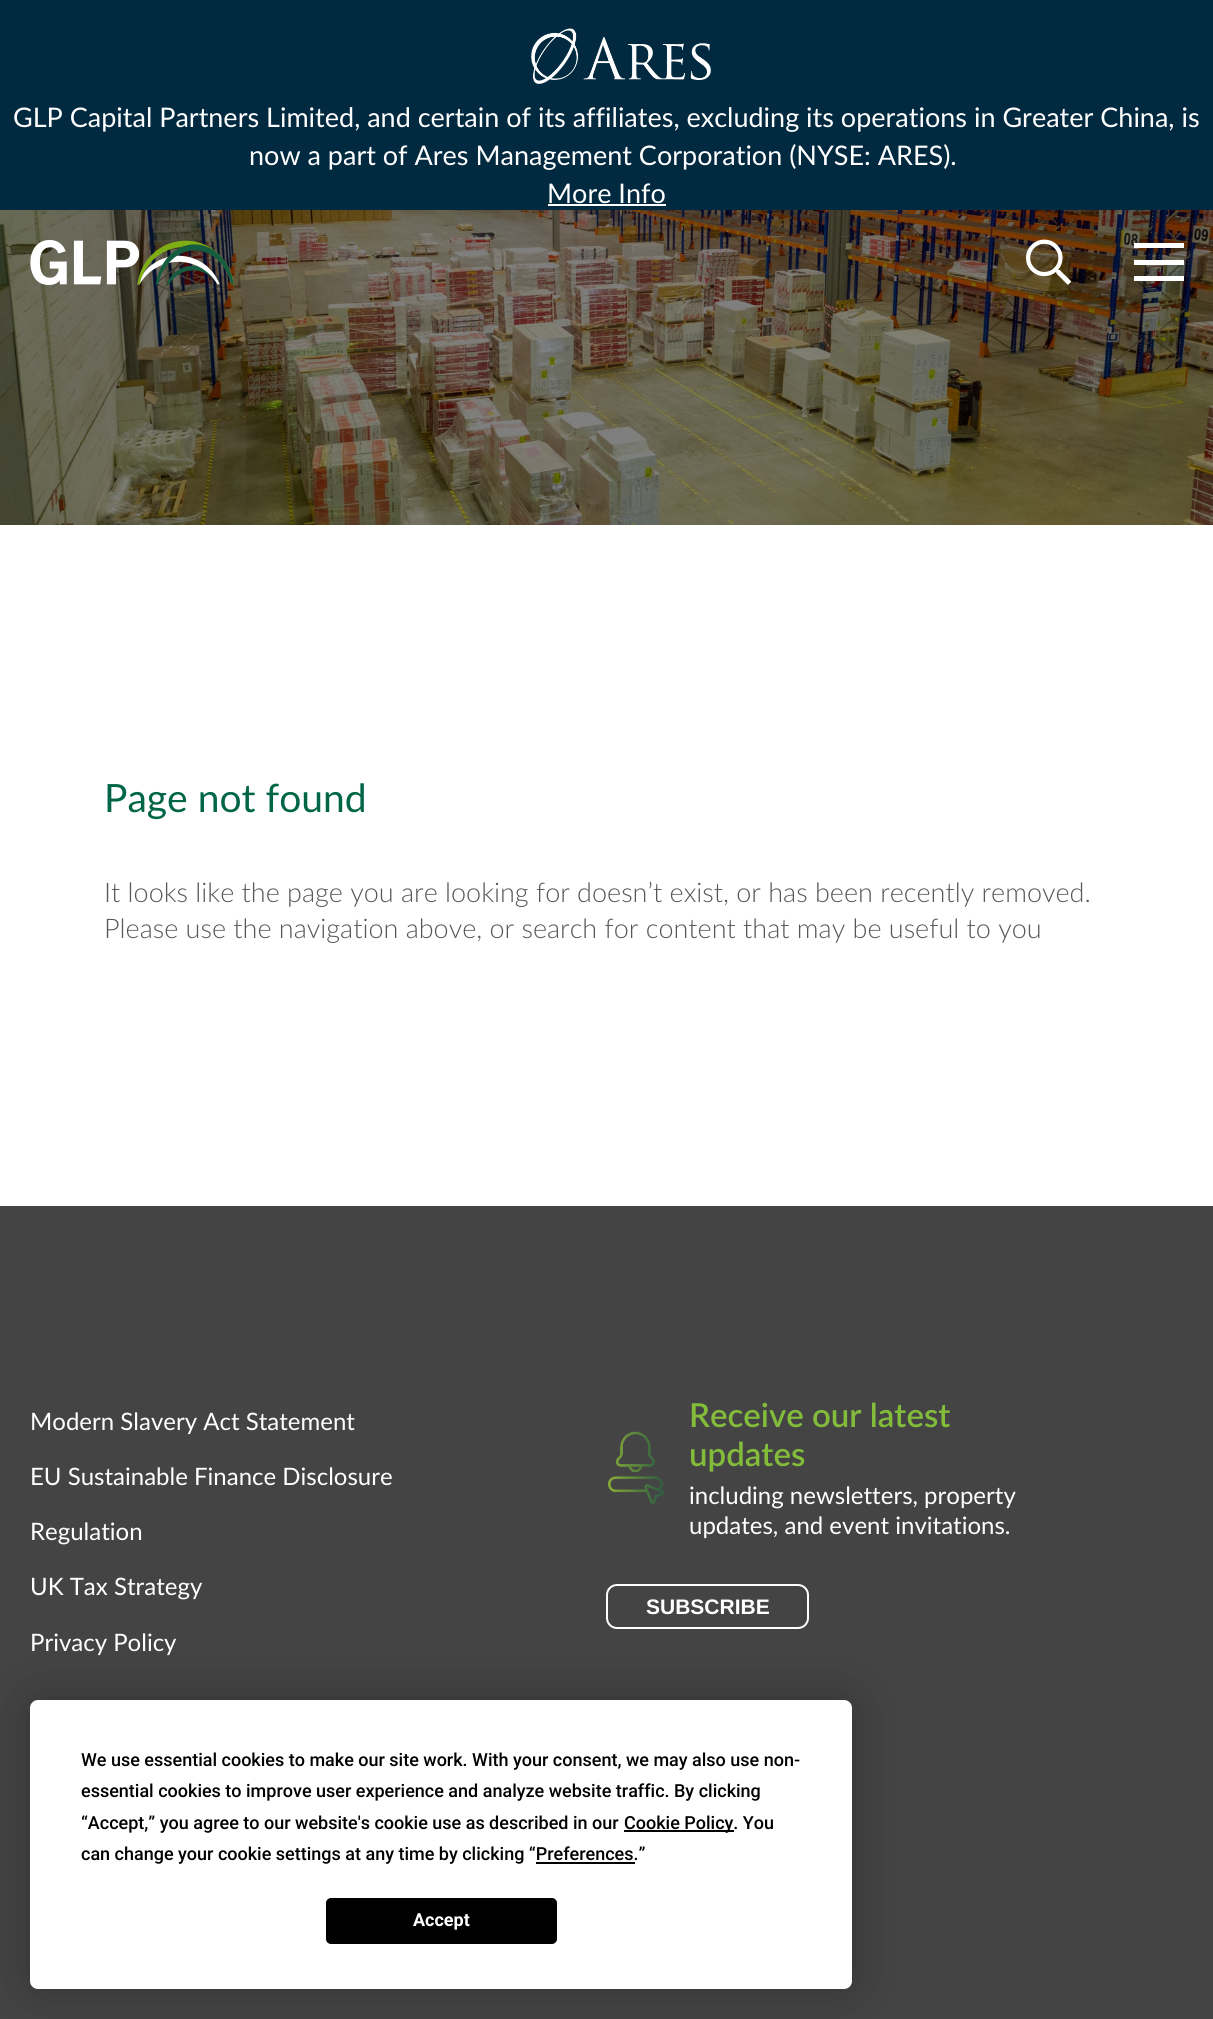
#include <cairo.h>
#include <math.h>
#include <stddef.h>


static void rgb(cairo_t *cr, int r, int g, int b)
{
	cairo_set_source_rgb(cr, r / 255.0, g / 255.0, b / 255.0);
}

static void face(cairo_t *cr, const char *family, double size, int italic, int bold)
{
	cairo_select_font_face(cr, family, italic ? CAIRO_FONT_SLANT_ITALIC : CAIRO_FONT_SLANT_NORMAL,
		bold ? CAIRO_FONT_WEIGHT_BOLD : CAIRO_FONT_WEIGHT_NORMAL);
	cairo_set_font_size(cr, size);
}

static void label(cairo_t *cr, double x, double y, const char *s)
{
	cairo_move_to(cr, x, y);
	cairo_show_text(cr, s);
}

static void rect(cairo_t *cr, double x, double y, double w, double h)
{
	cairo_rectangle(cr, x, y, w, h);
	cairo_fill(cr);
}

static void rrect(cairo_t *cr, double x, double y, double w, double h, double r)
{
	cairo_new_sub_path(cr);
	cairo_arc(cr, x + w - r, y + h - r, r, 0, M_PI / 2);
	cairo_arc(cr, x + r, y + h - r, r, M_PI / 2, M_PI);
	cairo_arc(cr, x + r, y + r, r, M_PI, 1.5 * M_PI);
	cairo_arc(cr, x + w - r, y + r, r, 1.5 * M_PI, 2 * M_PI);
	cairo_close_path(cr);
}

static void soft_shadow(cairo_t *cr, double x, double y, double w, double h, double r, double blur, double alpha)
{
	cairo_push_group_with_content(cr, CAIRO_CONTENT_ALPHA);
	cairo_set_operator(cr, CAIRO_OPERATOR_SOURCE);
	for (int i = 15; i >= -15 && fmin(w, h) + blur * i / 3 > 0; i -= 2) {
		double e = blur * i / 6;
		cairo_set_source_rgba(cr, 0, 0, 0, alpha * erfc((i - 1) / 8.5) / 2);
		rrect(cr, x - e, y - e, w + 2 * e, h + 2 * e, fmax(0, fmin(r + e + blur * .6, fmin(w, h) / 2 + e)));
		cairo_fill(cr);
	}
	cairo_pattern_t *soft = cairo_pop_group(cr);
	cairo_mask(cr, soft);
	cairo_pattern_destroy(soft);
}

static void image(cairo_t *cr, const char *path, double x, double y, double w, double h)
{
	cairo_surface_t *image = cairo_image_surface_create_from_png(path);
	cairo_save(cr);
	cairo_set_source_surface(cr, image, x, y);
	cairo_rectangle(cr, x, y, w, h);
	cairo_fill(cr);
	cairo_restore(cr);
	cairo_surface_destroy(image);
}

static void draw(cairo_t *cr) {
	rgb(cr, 255, 255, 255);
	cairo_paint(cr);
	rgb(cr, 1, 42, 64);
	rect(cr, 0, 0, 1213, 210);
	image(cr, "image0.png", 531, 28, 180, 56);
	face(cr, "Lato", 27, 0, 0);
	rgb(cr, 255, 255, 255);
	label(cr, 13, 127, "GLP Capital Partners Limited, and certain of its affiliates, excluding its operations in Greater China, is");
	label(cr, 249, 165, "now a part of Ares Management Corporation (NYSE: ARES).");
	label(cr, 547, 203, "More Info");
	rect(cr, 548, 204, 118, 2);
	image(cr, "image1.png", 0, 210, 1213, 315);
	image(cr, "image2.png", 30, 240, 204, 45);
	image(cr, "image3.png", 1026, 239, 45, 46);
	rect(cr, 1134, 243, 50, 5);
	rect(cr, 1134, 260, 50, 5);
	rect(cr, 1134, 276, 50, 5);
	face(cr, "Lato", 39, 0, 0);
	rgb(cr, 0, 102, 71);
	label(cr, 104, 812, "Page not found");
	face(cr, "Lato Light", 27, 0, 0);
	rgb(cr, 85, 87, 89);
	label(cr, 104, 902, "It looks like the page you are looking for doesn’t exist, or has been recently removed.");
	label(cr, 104, 938, "Please use the navigation above, or search for content that may be useful to you");
	rgb(cr, 68, 68, 68);
	rect(cr, 0, 1206, 1213, 813);
	face(cr, "Lato", 24, 0, 0);
	rgb(cr, 255, 255, 255);
	label(cr, 30, 1430, "Modern Slavery Act Statement");
	label(cr, 30, 1485, "EU Sustainable Finance Disclosure");
	label(cr, 30, 1540, "Regulation");
	label(cr, 30, 1595, "UK Tax Strategy");
	label(cr, 30, 1651, "Privacy Policy");
	image(cr, "image4.png", 607, 1431, 57, 73);
	face(cr, "Lato SemiBold", 33, 0, 0);
	rgb(cr, 130, 188, 58);
	label(cr, 689, 1427, "Receive our latest");
	label(cr, 689, 1466, "updates");
	face(cr, "Lato", 24, 0, 0);
	rgb(cr, 255, 255, 255);
	label(cr, 689, 1504, "including newsletters, property");
	label(cr, 689, 1534, "updates, and event invitations.");
	rrect(cr, 607, 1585, 201, 43, 10);
	cairo_stroke(cr);
	face(cr, "Liberation Sans", 21, 0, 1);
	label(cr, 646, 1614, "SUBSCRIBE");
	rgb(cr, 0, 0, 0);
	soft_shadow(cr, 30, 1700, 822, 289, 8, 26, 0.25);
	rgb(cr, 255, 255, 255);
	rrect(cr, 30, 1700, 822, 289, 8);
	cairo_fill(cr);
	face(cr, "Roboto Medium", 18, 0, 0);
	rgb(cr, 0, 0, 0);
	label(cr, 81, 1766, "We use essential cookies to make our site work. With your consent, we may also use non-");
	label(cr, 81, 1797, "essential cookies to improve user experience and analyze website traffic. By clicking");
	label(cr, 81, 1829, "“Accept,” you agree to our website's cookie use as described in our");
	rect(cr, 624, 1830, 110, 2);
	label(cr, 624, 1829, "Cookie Policy. You");
	label(cr, 81, 1860, "can change your cookie settings at any time by clicking “Preferences.”");
	rect(cr, 536, 1862, 99, 2);
	rrect(cr, 327, 1899, 229, 44, 4);
	cairo_fill_preserve(cr);
	cairo_stroke(cr);
	face(cr, "Roboto", 18, 0, 1);
	rgb(cr, 255, 255, 255);
	label(cr, 413, 1926, "Accept");
}

int main(void) {
	cairo_surface_t *surface = cairo_image_surface_create(CAIRO_FORMAT_RGB24, 1213, 2019);
	cairo_t *cr = cairo_create(surface);
	cairo_font_options_t *options = cairo_font_options_create();
	cairo_font_options_set_hint_metrics(options, CAIRO_HINT_METRICS_OFF);
	cairo_font_options_set_hint_style(options, CAIRO_HINT_STYLE_NONE);
	cairo_set_font_options(cr, options);
	cairo_set_miter_limit(cr, 4);
	draw(cr);
	cairo_surface_write_to_png(surface, "render.png");
	cairo_font_options_destroy(options);
	cairo_destroy(cr);
	cairo_surface_destroy(surface);
	return 0;
}
